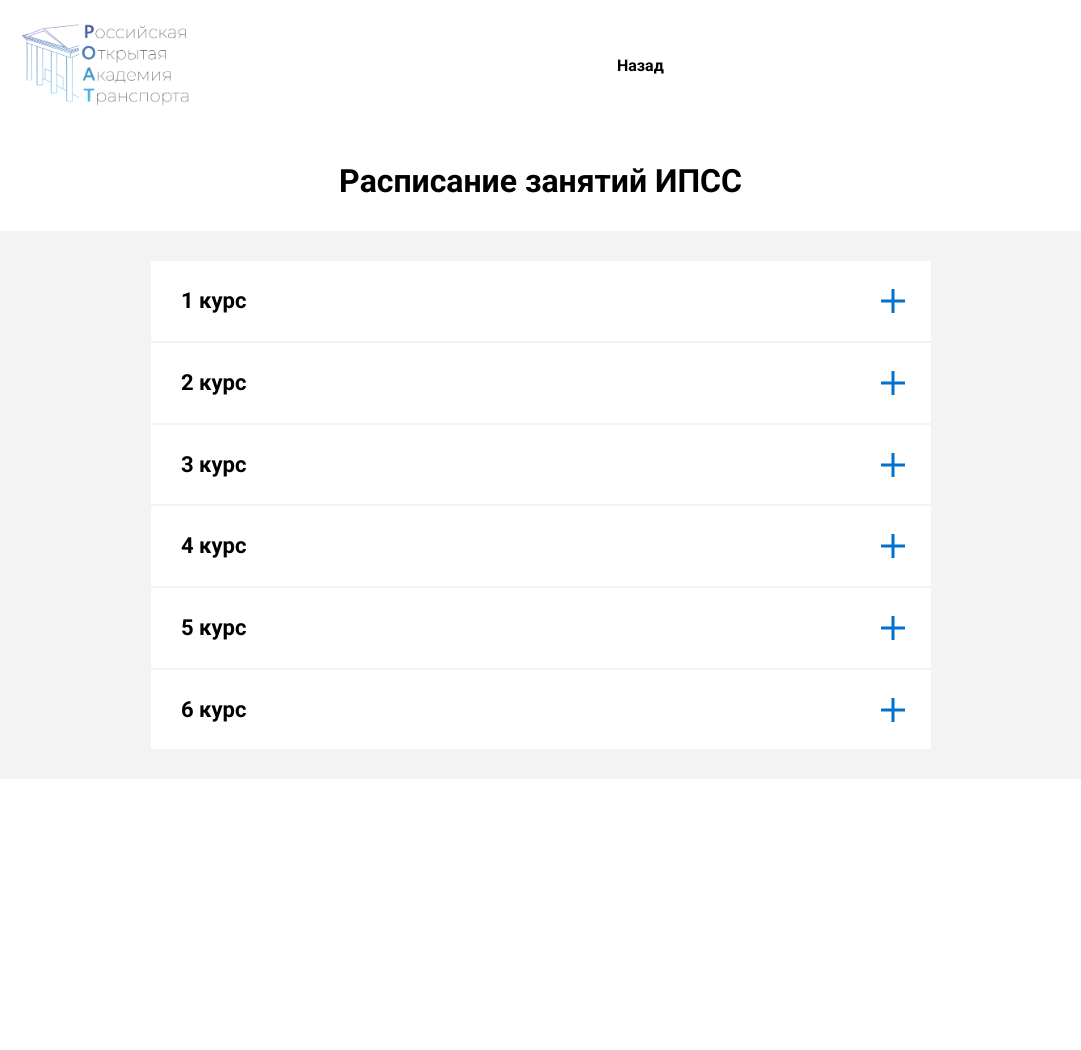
#include <cairo.h>
#include <math.h>
#include <stddef.h>


static void rgb(cairo_t *cr, int r, int g, int b)
{
	cairo_set_source_rgb(cr, r / 255.0, g / 255.0, b / 255.0);
}

static void face(cairo_t *cr, const char *family, double size, int italic, int bold)
{
	cairo_select_font_face(cr, family, italic ? CAIRO_FONT_SLANT_ITALIC : CAIRO_FONT_SLANT_NORMAL,
		bold ? CAIRO_FONT_WEIGHT_BOLD : CAIRO_FONT_WEIGHT_NORMAL);
	cairo_set_font_size(cr, size);
}

static void label(cairo_t *cr, double x, double y, const char *s)
{
	cairo_move_to(cr, x, y);
	cairo_show_text(cr, s);
}

static void rect(cairo_t *cr, double x, double y, double w, double h)
{
	cairo_rectangle(cr, x, y, w, h);
	cairo_fill(cr);
}

static void image(cairo_t *cr, const char *path, double x, double y, double w, double h)
{
	cairo_surface_t *image = cairo_image_surface_create_from_png(path);
	cairo_save(cr);
	cairo_set_source_surface(cr, image, x, y);
	cairo_rectangle(cr, x, y, w, h);
	cairo_fill(cr);
	cairo_restore(cr);
	cairo_surface_destroy(image);
}

static void draw(cairo_t *cr) {
	rgb(cr, 255, 255, 255);
	cairo_paint(cr);
	image(cr, "image0.png", 21, 24, 168, 82);
	face(cr, "Roboto", 16, 0, 1);
	rgb(cr, 0, 0, 0);
	label(cr, 617, 71, "Назад");
	face(cr, "Roboto", 32, 0, 1);
	label(cr, 339, 192, "Расписание занятий ИПСС");
	rgb(cr, 243, 243, 243);
	rect(cr, 0, 231, 1081, 548);
	rgb(cr, 255, 255, 255);
	rect(cr, 151, 261, 780, 80);
	face(cr, "Roboto", 22, 0, 1);
	rgb(cr, 0, 0, 0);
	label(cr, 181, 308, "1 курс");
	cairo_save(cr);
	cairo_rectangle(cr, 881, 289, 24, 24);
	cairo_clip(cr);
	cairo_new_path(cr);
	cairo_move_to(cr, 882, 301);
	cairo_line_to(cr, 904, 301);
	cairo_move_to(cr, 893, 290);
	cairo_line_to(cr, 893, 312);
	rgb(cr, 0, 114, 206);
	cairo_set_line_width(cr, 3);
	cairo_set_line_cap(cr, CAIRO_LINE_CAP_SQUARE);
	cairo_stroke(cr);
	cairo_restore(cr);
	rgb(cr, 255, 255, 255);
	rect(cr, 151, 343, 780, 80);
	rgb(cr, 0, 0, 0);
	label(cr, 181, 390, "2 курс");
	cairo_save(cr);
	cairo_rectangle(cr, 881, 371, 24, 24);
	cairo_clip(cr);
	cairo_new_path(cr);
	cairo_move_to(cr, 882, 383);
	cairo_line_to(cr, 904, 383);
	cairo_move_to(cr, 893, 372);
	cairo_line_to(cr, 893, 394);
	rgb(cr, 0, 114, 206);
	cairo_set_line_width(cr, 3);
	cairo_set_line_cap(cr, CAIRO_LINE_CAP_SQUARE);
	cairo_stroke(cr);
	cairo_restore(cr);
	rgb(cr, 255, 255, 255);
	rect(cr, 151, 425, 780, 79);
	rgb(cr, 0, 0, 0);
	label(cr, 181, 472, "3 курс");
	cairo_save(cr);
	cairo_rectangle(cr, 881, 453, 24, 24);
	cairo_clip(cr);
	cairo_new_path(cr);
	cairo_move_to(cr, 882, 465);
	cairo_line_to(cr, 904, 465);
	cairo_move_to(cr, 893, 454);
	cairo_line_to(cr, 893, 476);
	rgb(cr, 0, 114, 206);
	cairo_set_line_width(cr, 3);
	cairo_set_line_cap(cr, CAIRO_LINE_CAP_SQUARE);
	cairo_stroke(cr);
	cairo_restore(cr);
	rgb(cr, 255, 255, 255);
	rect(cr, 151, 506, 780, 80);
	rgb(cr, 0, 0, 0);
	label(cr, 181, 553, "4 курс");
	cairo_save(cr);
	cairo_rectangle(cr, 881, 534, 24, 24);
	cairo_clip(cr);
	cairo_new_path(cr);
	cairo_move_to(cr, 882, 546);
	cairo_line_to(cr, 904, 546);
	cairo_move_to(cr, 893, 535);
	cairo_line_to(cr, 893, 557);
	rgb(cr, 0, 114, 206);
	cairo_set_line_width(cr, 3);
	cairo_set_line_cap(cr, CAIRO_LINE_CAP_SQUARE);
	cairo_stroke(cr);
	cairo_restore(cr);
	rgb(cr, 255, 255, 255);
	rect(cr, 151, 588, 780, 80);
	rgb(cr, 0, 0, 0);
	label(cr, 181, 635, "5 курс");
	cairo_save(cr);
	cairo_rectangle(cr, 881, 616, 24, 24);
	cairo_clip(cr);
	cairo_new_path(cr);
	cairo_move_to(cr, 882, 628);
	cairo_line_to(cr, 904, 628);
	cairo_move_to(cr, 893, 617);
	cairo_line_to(cr, 893, 639);
	rgb(cr, 0, 114, 206);
	cairo_set_line_width(cr, 3);
	cairo_set_line_cap(cr, CAIRO_LINE_CAP_SQUARE);
	cairo_stroke(cr);
	cairo_restore(cr);
	rgb(cr, 255, 255, 255);
	rect(cr, 151, 670, 780, 79);
	rgb(cr, 0, 0, 0);
	label(cr, 181, 717, "6 курс");
	cairo_save(cr);
	cairo_rectangle(cr, 881, 698, 24, 24);
	cairo_clip(cr);
	cairo_new_path(cr);
	cairo_move_to(cr, 882, 710);
	cairo_line_to(cr, 904, 710);
	cairo_move_to(cr, 893, 699);
	cairo_line_to(cr, 893, 721);
	rgb(cr, 0, 114, 206);
	cairo_set_line_width(cr, 3);
	cairo_set_line_cap(cr, CAIRO_LINE_CAP_SQUARE);
	cairo_stroke(cr);
	cairo_restore(cr);
}

int main(void) {
	cairo_surface_t *surface = cairo_image_surface_create(CAIRO_FORMAT_RGB24, 1081, 1050);
	cairo_t *cr = cairo_create(surface);
	cairo_font_options_t *options = cairo_font_options_create();
	cairo_font_options_set_hint_metrics(options, CAIRO_HINT_METRICS_OFF);
	cairo_font_options_set_hint_style(options, CAIRO_HINT_STYLE_NONE);
	cairo_set_font_options(cr, options);
	cairo_set_miter_limit(cr, 4);
	draw(cr);
	cairo_surface_write_to_png(surface, "render.png");
	cairo_font_options_destroy(options);
	cairo_destroy(cr);
	cairo_surface_destroy(surface);
	return 0;
}
